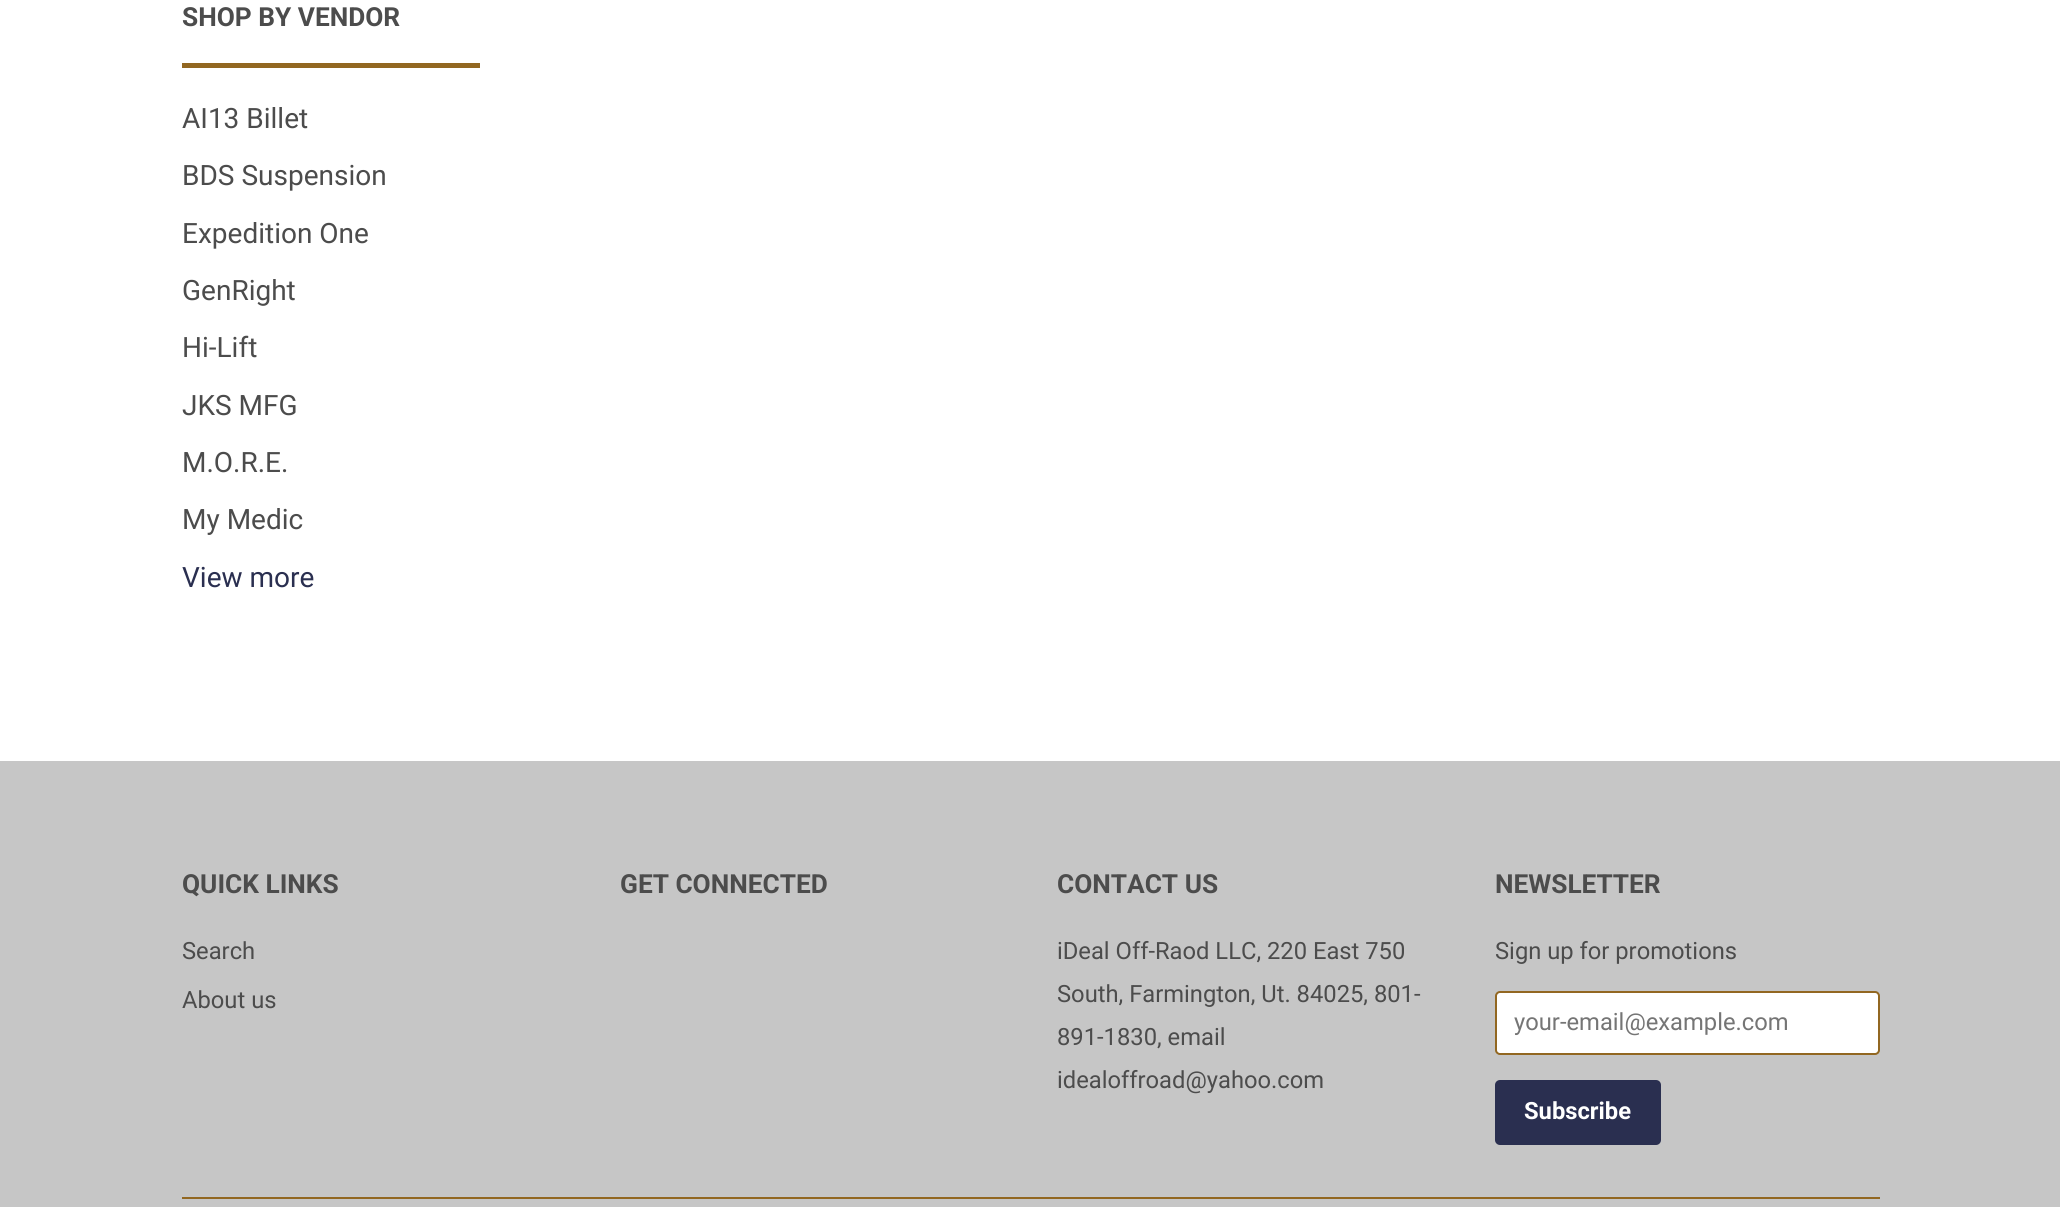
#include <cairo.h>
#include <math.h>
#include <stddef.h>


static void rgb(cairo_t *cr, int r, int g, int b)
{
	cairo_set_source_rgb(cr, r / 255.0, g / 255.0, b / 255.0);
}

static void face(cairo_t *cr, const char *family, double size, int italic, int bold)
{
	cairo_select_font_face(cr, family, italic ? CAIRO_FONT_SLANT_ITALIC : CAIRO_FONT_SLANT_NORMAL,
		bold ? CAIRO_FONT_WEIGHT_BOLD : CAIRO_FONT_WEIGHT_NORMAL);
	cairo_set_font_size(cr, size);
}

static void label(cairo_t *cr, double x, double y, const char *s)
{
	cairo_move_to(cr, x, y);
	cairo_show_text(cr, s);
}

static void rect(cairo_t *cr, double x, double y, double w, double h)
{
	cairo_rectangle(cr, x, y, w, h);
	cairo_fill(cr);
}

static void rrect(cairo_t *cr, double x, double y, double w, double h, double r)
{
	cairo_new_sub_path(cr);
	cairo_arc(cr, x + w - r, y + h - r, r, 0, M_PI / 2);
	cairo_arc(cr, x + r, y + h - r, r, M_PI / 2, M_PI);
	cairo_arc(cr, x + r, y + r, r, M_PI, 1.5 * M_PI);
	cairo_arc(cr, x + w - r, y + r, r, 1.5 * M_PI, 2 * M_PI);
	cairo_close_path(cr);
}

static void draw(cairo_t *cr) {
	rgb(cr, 255, 255, 255);
	cairo_paint(cr);
	rgb(cr, 146, 103, 33);
	rect(cr, 182, 63, 298, 5);
	face(cr, "Roboto", 26.25, 0, 1);
	rgb(cr, 76, 76, 76);
	label(cr, 182, 26, "SHOP BY VENDOR");
	face(cr, "Roboto", 28, 0, 0);
	label(cr, 182, 128, "AI13 Billet");
	label(cr, 182, 185, "BDS Suspension");
	label(cr, 182, 243, "Expedition One");
	label(cr, 182, 300, "GenRight");
	label(cr, 182, 357, "Hi-Lift");
	label(cr, 182, 415, "JKS MFG");
	label(cr, 182, 472, "M.O.R.E.");
	label(cr, 182, 529, "My Medic");
	rgb(cr, 42, 47, 80);
	label(cr, 182, 587, "View more");
	rgb(cr, 198, 198, 198);
	rect(cr, 0, 761, 2060, 446);
	face(cr, "Roboto", 26.25, 0, 1);
	rgb(cr, 76, 76, 76);
	label(cr, 182, 893, "QUICK LINKS");
	face(cr, "Roboto", 23.75, 0, 0);
	label(cr, 182, 959, "Search");
	label(cr, 182, 1008, "About us");
	face(cr, "Roboto", 26.25, 0, 1);
	label(cr, 620, 893, "GET CONNECTED");
	label(cr, 1057, 893, "CONTACT US");
	face(cr, "Roboto", 23.75, 0, 0);
	label(cr, 1057, 959, "iDeal Off-Raod LLC, 220 East 750");
	label(cr, 1057, 1002, "South, Farmington, Ut. 84025, 801-");
	label(cr, 1057, 1045, "891-1830, email");
	label(cr, 1057, 1088, "idealoffroad@yahoo.com");
	face(cr, "Roboto", 26.25, 0, 1);
	label(cr, 1495, 893, "NEWSLETTER");
	face(cr, "Roboto", 23.75, 0, 0);
	label(cr, 1495, 959, "Sign up for promotions");
	rgb(cr, 255, 255, 255);
	rrect(cr, 1496, 992, 383, 62, 4);
	cairo_fill_preserve(cr);
	rgb(cr, 146, 103, 33);
	cairo_stroke(cr);
	rgb(cr, 117, 117, 117);
	label(cr, 1514, 1030, "your-email@example.com");
	rgb(cr, 42, 47, 80);
	rrect(cr, 1495, 1080, 166, 65, 5);
	cairo_fill(cr);
	face(cr, "Roboto", 23.75, 0, 1);
	rgb(cr, 255, 255, 255);
	label(cr, 1524, 1119, "Subscribe");
	rgb(cr, 146, 103, 33);
	rect(cr, 182, 1197, 1698, 2);
}

int main(void) {
	cairo_surface_t *surface = cairo_image_surface_create(CAIRO_FORMAT_RGB24, 2060, 1207);
	cairo_t *cr = cairo_create(surface);
	cairo_font_options_t *options = cairo_font_options_create();
	cairo_font_options_set_hint_metrics(options, CAIRO_HINT_METRICS_OFF);
	cairo_font_options_set_hint_style(options, CAIRO_HINT_STYLE_NONE);
	cairo_set_font_options(cr, options);
	cairo_set_miter_limit(cr, 4);
	draw(cr);
	cairo_surface_write_to_png(surface, "render.png");
	cairo_font_options_destroy(options);
	cairo_destroy(cr);
	cairo_surface_destroy(surface);
	return 0;
}
